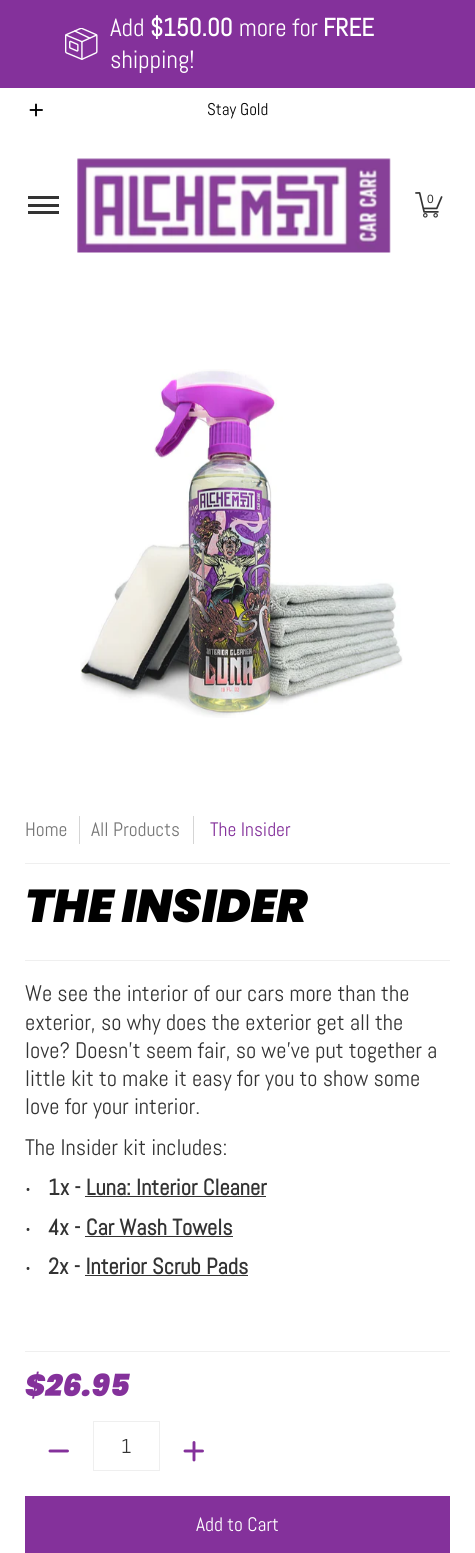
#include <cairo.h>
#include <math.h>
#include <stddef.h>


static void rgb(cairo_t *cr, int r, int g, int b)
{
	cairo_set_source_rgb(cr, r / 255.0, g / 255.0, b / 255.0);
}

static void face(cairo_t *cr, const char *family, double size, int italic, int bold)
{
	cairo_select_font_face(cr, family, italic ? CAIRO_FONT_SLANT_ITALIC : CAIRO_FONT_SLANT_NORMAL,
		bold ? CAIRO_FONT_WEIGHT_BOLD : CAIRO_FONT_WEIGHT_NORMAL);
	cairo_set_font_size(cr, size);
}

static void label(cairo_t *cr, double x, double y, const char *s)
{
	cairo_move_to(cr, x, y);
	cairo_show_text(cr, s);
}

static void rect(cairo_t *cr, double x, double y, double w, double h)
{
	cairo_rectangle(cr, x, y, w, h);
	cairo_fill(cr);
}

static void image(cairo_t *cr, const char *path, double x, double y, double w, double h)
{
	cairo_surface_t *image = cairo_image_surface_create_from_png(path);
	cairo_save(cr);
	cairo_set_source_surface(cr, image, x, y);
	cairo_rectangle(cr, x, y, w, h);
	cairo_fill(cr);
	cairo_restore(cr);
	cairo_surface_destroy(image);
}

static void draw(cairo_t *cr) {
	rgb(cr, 255, 255, 255);
	cairo_paint(cr);
	rgb(cr, 132, 49, 155);
	rect(cr, 0, 0, 475, 88);
	image(cr, "image0.png", 65, 28, 33, 32);
	face(cr, "Abel", 25, 0, 0);
	rgb(cr, 255, 255, 255);
	label(cr, 110, 36, "Add");
	face(cr, "Abel", 25, 0, 1);
	label(cr, 150, 36, "$150.00");
	face(cr, "Abel", 25, 0, 0);
	label(cr, 239, 36, "more for");
	face(cr, "Abel", 25, 0, 1);
	label(cr, 323, 36, "FREE");
	face(cr, "Abel", 25, 0, 0);
	label(cr, 110, 68, "shipping!");
	cairo_new_path(cr);
	cairo_move_to(cr, 36, 104.5);
	cairo_line_to(cr, 36, 115.5);
	cairo_move_to(cr, 42, 110);
	cairo_line_to(cr, 30.5, 110);
	rgb(cr, 0, 0, 0);
	cairo_set_line_width(cr, 1.9);
	cairo_set_line_cap(cr, CAIRO_LINE_CAP_ROUND);
	cairo_set_line_join(cr, CAIRO_LINE_JOIN_ROUND);
	cairo_stroke(cr);
	face(cr, "Abel", 17, 0, 0);
	label(cr, 207, 115, "Stay Gold");
	rgb(cr, 51, 51, 51);
	rect(cr, 28, 196, 31, 3);
	rect(cr, 28, 211, 31, 3);
	rect(cr, 28, 204, 31, 3);
	image(cr, "image1.png", 77, 158, 314, 95);
	image(cr, "image2.png", 415, 192, 28, 26);
	face(cr, "Liberation Sans", 12, 0, 0);
	label(cr, 427, 203, "0");
	image(cr, "image3.png", 80, 369, 323, 349);
	rgb(cr, 239, 239, 239);
	rect(cr, 25, 863, 425, 1);
	face(cr, "Abel", 19.5, 0, 0);
	rgb(cr, 118, 118, 118);
	label(cr, 25, 836, "Home");
	rgb(cr, 213, 213, 213);
	rect(cr, 79, 816, 1, 28);
	rgb(cr, 118, 118, 118);
	label(cr, 91, 836, "All Products");
	rgb(cr, 213, 213, 213);
	rect(cr, 193, 816, 1, 28);
	rgb(cr, 132, 49, 155);
	label(cr, 210, 836, "The Insider");
	face(cr, "Poppins Black", 46, 1, 0);
	rgb(cr, 0, 0, 0);
	label(cr, 25, 922, "THE INSIDER");
	rgb(cr, 239, 239, 239);
	rect(cr, 25, 960, 425, 1);
	face(cr, "Abel", 22.5, 0, 0);
	rgb(cr, 51, 51, 51);
	label(cr, 25, 1001, "We see the interior of our cars more than the");
	label(cr, 25, 1030, "exterior, so why does the exterior get all the");
	label(cr, 25, 1058, "love? Doesn't seem fair, so we've put together a");
	label(cr, 25, 1086, "little kit to make it easy for you to show some");
	label(cr, 25, 1114, "love for your interior.");
	label(cr, 25, 1155, "The Insider kit includes:");
	face(cr, "Noto Sans", 22.5, 0, 0);
	label(cr, 25, 1195, "‧");
	face(cr, "Abel", 22.5, 0, 1);
	label(cr, 48, 1195, "1x - Luna: Interior Cleaner");
	rect(cr, 85, 1196, 181, 1);
	face(cr, "Noto Sans", 22.5, 0, 0);
	label(cr, 25, 1235, "‧");
	face(cr, "Abel", 22.5, 0, 1);
	label(cr, 48, 1235, "4x - Car Wash Towels");
	rect(cr, 85, 1236, 148, 1);
	face(cr, "Noto Sans", 22.5, 0, 0);
	label(cr, 25, 1274, "‧");
	face(cr, "Abel", 22.5, 0, 1);
	label(cr, 48, 1274, "2x - Interior Scrub Pads");
	rect(cr, 85, 1275, 163, 1);
	rgb(cr, 239, 239, 239);
	rect(cr, 25, 1351, 425, 1);
	face(cr, "Poppins Black", 30.5, 1, 0);
	rgb(cr, 132, 49, 155);
	label(cr, 25, 1396, "$26.95");
	cairo_new_path(cr);
	cairo_move_to(cr, 67.5, 1451);
	cairo_line_to(cr, 50, 1451);
	cairo_set_line_width(cr, 2.9);
	cairo_stroke(cr);
	cairo_rectangle(cr, 93.5, 1421.5, 66, 49);
	rgb(cr, 239, 239, 239);
	cairo_set_line_width(cr, 1);
	cairo_set_line_cap(cr, CAIRO_LINE_CAP_BUTT);
	cairo_set_line_join(cr, CAIRO_LINE_JOIN_MITER);
	cairo_stroke(cr);
	face(cr, "Abel", 20, 0, 0);
	rgb(cr, 51, 51, 51);
	label(cr, 121, 1453, "1");
	cairo_new_path(cr);
	cairo_move_to(cr, 194, 1442.5);
	cairo_line_to(cr, 194, 1460);
	cairo_move_to(cr, 202.5, 1451);
	cairo_line_to(cr, 185, 1451);
	rgb(cr, 132, 49, 155);
	cairo_set_line_width(cr, 2.9);
	cairo_set_line_cap(cr, CAIRO_LINE_CAP_ROUND);
	cairo_set_line_join(cr, CAIRO_LINE_JOIN_ROUND);
	cairo_stroke(cr);
	rect(cr, 25, 1496, 425, 57);
	face(cr, "Abel", 19.5, 0, 0);
	rgb(cr, 255, 255, 255);
	label(cr, 196, 1531, "Add to Cart");
}

int main(void) {
	cairo_surface_t *surface = cairo_image_surface_create(CAIRO_FORMAT_RGB24, 475, 1553);
	cairo_t *cr = cairo_create(surface);
	cairo_font_options_t *options = cairo_font_options_create();
	cairo_font_options_set_hint_metrics(options, CAIRO_HINT_METRICS_OFF);
	cairo_font_options_set_hint_style(options, CAIRO_HINT_STYLE_NONE);
	cairo_set_font_options(cr, options);
	cairo_set_miter_limit(cr, 4);
	draw(cr);
	cairo_surface_write_to_png(surface, "render.png");
	cairo_font_options_destroy(options);
	cairo_destroy(cr);
	cairo_surface_destroy(surface);
	return 0;
}
